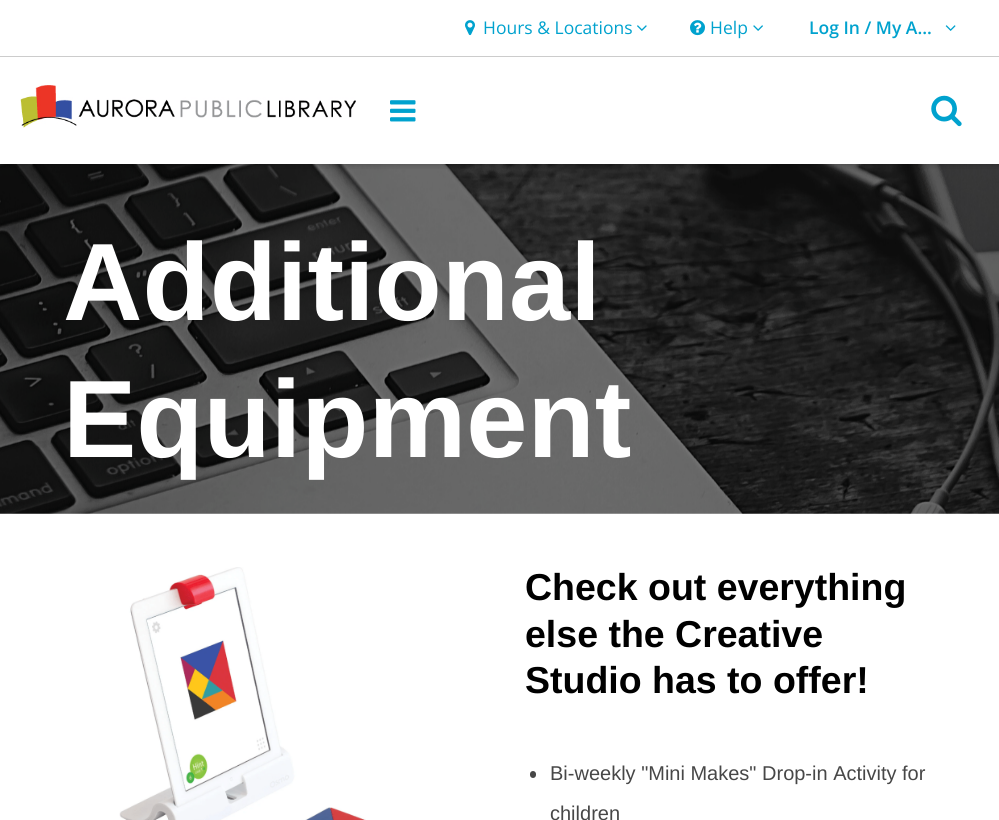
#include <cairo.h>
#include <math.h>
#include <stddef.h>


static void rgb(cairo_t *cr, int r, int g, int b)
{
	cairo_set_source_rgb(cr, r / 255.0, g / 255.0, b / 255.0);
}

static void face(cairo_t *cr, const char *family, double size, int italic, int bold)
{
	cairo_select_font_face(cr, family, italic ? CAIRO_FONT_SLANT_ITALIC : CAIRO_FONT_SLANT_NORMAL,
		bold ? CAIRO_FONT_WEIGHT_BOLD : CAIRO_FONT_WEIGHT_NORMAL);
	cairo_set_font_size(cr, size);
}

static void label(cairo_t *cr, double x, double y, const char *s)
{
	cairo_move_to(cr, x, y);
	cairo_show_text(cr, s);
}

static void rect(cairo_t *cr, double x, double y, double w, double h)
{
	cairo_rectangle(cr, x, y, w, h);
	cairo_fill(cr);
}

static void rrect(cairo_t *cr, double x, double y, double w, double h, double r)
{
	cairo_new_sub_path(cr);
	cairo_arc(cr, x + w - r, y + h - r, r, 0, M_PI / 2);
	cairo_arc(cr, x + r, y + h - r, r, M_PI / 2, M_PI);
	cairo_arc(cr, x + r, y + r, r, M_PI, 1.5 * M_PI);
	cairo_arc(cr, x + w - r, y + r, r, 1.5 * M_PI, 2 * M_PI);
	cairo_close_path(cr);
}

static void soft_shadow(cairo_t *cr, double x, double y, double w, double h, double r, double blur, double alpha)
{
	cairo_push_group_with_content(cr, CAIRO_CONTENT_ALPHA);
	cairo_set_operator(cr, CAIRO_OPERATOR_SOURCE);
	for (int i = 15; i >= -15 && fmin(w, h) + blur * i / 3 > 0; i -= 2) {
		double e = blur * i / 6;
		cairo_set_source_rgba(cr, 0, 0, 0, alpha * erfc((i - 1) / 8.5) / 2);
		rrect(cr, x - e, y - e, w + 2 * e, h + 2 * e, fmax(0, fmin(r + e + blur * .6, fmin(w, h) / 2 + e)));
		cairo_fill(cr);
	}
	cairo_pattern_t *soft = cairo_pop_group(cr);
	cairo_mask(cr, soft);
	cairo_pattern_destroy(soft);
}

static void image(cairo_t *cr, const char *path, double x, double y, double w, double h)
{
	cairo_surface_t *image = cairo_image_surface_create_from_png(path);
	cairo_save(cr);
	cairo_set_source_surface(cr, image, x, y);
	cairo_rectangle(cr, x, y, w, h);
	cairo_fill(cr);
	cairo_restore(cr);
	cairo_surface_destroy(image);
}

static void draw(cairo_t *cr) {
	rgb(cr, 255, 255, 255);
	cairo_paint(cr);
	image(cr, "image8.png", 0, 164, 999, 350);
	cairo_save(cr);
	cairo_rectangle(cr, 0, 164, 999, 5);
	cairo_clip(cr);
	rgb(cr, 0, 0, 0);
	soft_shadow(cr, 0, 3, 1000, 163, 0, 2.5, 0.16);
	cairo_restore(cr);
	rgb(cr, 204, 204, 204);
	rect(cr, 0, 56, 999, 1);
	image(cr, "image0.png", 465, 20, 10, 16);
	face(cr, "Open Sans", 17.5, 0, 0);
	rgb(cr, 0, 162, 206);
	label(cr, 483, 34, "Hours & Locations");
	image(cr, "image1.png", 637, 25, 10, 6);
	image(cr, "image2.png", 690, 20, 15, 16);
	label(cr, 710, 34, "Help");
	image(cr, "image3.png", 753, 25, 10, 6);
	face(cr, "Open Sans SemiBold", 17.5, 0, 0);
	label(cr, 809, 34, "Log In / My A…");
	image(cr, "image4.png", 945, 25, 11, 6);
	rgb(cr, 255, 255, 255);
	rect(cr, 0, 163, 999, 1);
	image(cr, "image5.png", 20, 85, 336, 43);
	image(cr, "image6.png", 390, 100, 26, 22);
	image(cr, "image7.png", 931, 95, 31, 32);
	face(cr, "Liberation Sans", 110, 0, 1);
	label(cr, 63, 320, "Additional");
	label(cr, 63, 457, "Equipment");
	image(cr, "image9.png", 119, 567, 247, 253);
	face(cr, "Liberation Sans", 37.5, 0, 1);
	rgb(cr, 0, 0, 0);
	label(cr, 525, 600, "Check out everything");
	label(cr, 525, 647, "else the Creative");
	label(cr, 525, 693, "Studio has to offer!");
	rgb(cr, 71, 71, 71);
	rrect(cr, 530, 771, 6, 7, 3);
	cairo_fill(cr);
	face(cr, "Liberation Sans", 20, 0, 0);
	label(cr, 550, 780, "Bi-weekly \"Mini Makes\" Drop-in Activity for");
	label(cr, 550, 820, "children");
}

int main(void) {
	cairo_surface_t *surface = cairo_image_surface_create(CAIRO_FORMAT_RGB24, 999, 820);
	cairo_t *cr = cairo_create(surface);
	cairo_font_options_t *options = cairo_font_options_create();
	cairo_font_options_set_hint_metrics(options, CAIRO_HINT_METRICS_OFF);
	cairo_font_options_set_hint_style(options, CAIRO_HINT_STYLE_NONE);
	cairo_set_font_options(cr, options);
	cairo_set_miter_limit(cr, 4);
	draw(cr);
	cairo_surface_write_to_png(surface, "render.png");
	cairo_font_options_destroy(options);
	cairo_destroy(cr);
	cairo_surface_destroy(surface);
	return 0;
}
